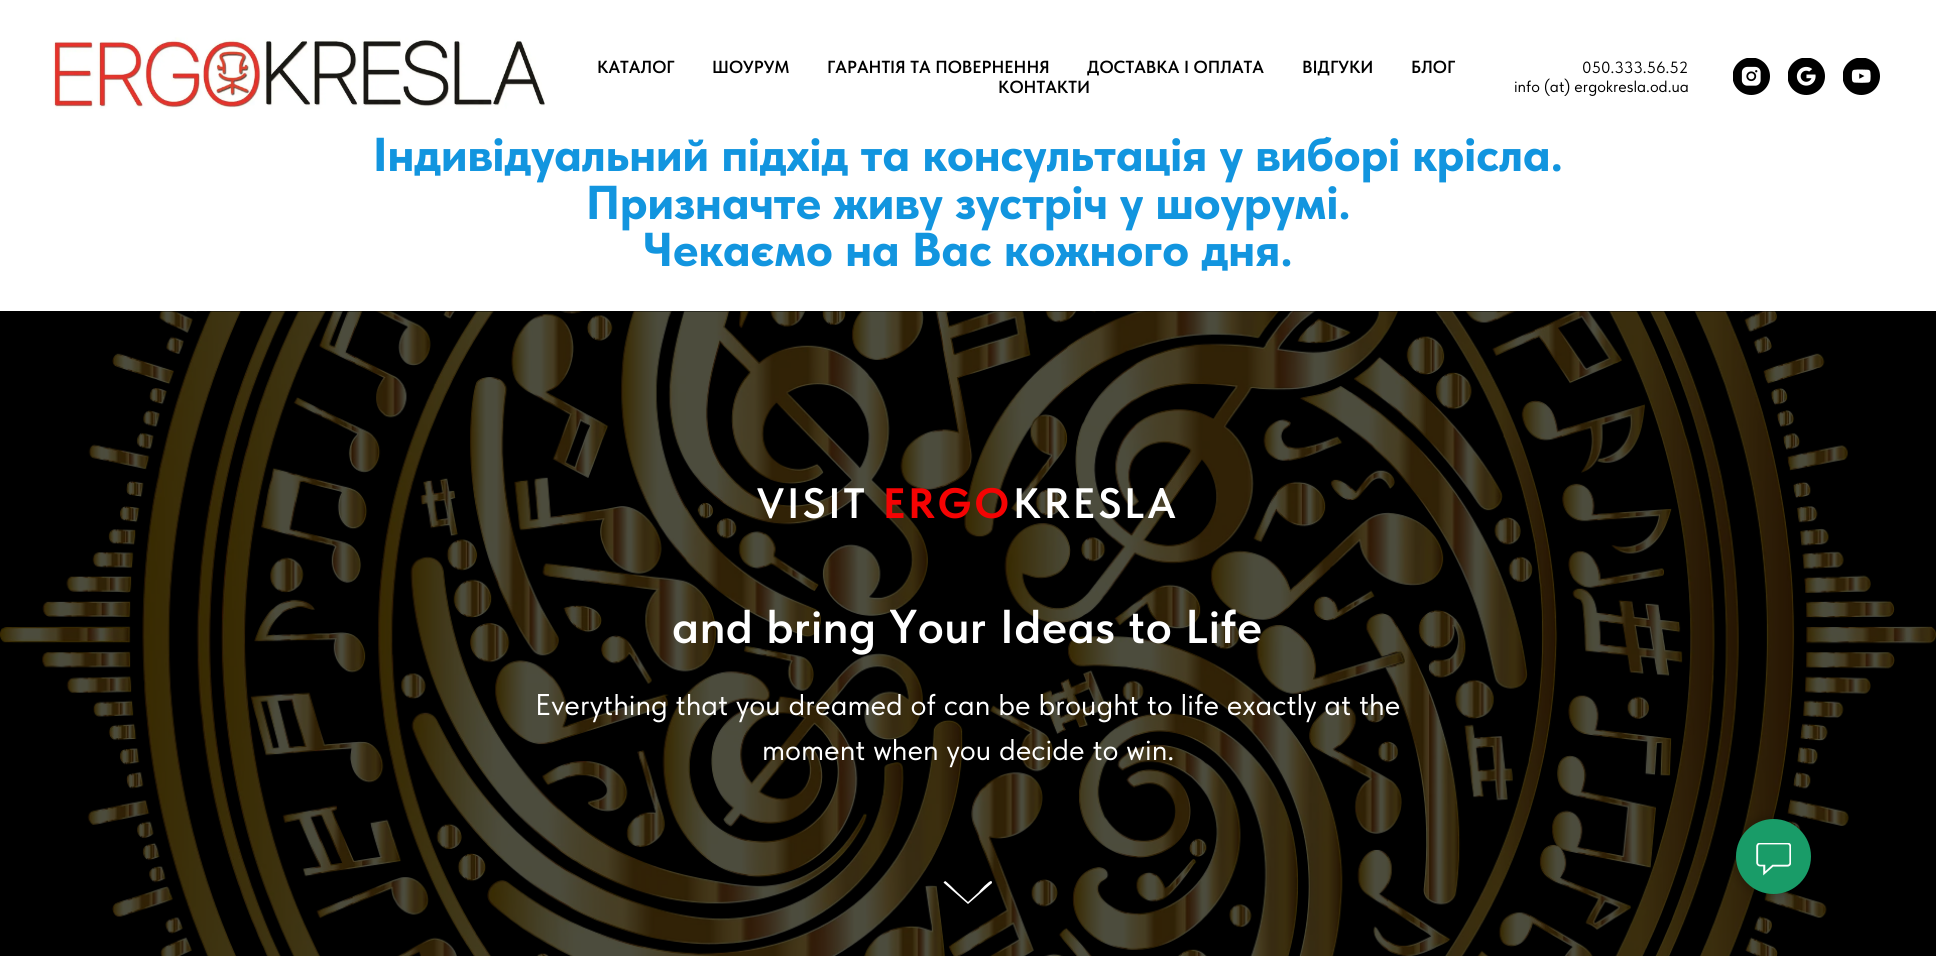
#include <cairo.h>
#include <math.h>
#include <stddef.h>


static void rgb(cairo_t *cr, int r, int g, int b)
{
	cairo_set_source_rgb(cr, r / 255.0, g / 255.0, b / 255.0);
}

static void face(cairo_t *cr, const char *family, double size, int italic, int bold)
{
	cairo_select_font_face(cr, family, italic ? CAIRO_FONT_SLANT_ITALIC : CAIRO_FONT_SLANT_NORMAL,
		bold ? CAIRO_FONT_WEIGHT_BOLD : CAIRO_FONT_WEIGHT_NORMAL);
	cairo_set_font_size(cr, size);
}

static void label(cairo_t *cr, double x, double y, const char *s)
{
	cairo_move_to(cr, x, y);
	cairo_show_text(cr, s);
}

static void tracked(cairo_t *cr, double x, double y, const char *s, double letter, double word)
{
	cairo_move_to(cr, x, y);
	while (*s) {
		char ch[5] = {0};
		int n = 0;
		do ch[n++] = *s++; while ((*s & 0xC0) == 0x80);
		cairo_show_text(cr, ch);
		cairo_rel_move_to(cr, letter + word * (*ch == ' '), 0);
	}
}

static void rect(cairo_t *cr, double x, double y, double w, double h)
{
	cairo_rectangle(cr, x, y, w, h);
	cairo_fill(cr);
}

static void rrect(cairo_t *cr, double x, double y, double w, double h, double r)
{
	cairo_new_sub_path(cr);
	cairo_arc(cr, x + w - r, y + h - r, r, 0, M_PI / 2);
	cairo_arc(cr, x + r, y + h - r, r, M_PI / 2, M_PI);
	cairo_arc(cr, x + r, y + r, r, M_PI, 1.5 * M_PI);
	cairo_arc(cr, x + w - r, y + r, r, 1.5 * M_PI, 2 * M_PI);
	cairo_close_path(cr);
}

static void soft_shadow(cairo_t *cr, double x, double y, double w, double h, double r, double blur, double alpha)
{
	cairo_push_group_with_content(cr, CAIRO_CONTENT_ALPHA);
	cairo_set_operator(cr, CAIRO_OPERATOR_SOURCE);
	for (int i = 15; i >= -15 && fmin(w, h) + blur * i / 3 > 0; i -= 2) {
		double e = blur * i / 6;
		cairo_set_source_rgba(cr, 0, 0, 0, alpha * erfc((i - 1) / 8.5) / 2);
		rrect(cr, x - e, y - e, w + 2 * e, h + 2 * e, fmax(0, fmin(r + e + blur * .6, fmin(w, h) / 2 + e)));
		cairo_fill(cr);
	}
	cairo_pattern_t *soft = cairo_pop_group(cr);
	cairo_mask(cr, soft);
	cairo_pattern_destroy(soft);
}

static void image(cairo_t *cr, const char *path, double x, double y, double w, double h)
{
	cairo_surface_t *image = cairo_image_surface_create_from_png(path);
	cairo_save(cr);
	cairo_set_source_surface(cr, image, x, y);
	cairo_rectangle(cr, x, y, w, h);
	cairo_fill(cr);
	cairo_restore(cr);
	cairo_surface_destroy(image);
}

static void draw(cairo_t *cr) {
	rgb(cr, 255, 255, 255);
	cairo_paint(cr);
	image(cr, "image0.png", 53, 37, 492, 72);
	face(cr, "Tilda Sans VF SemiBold", 17.5, 0, 0);
	rgb(cr, 0, 0, 0);
	label(cr, 597, 73, "КАТАЛОГ");
	label(cr, 712, 73, "ШОУРУМ");
	label(cr, 827, 73, "ГАРАНТІЯ ТА ПОВЕРНЕННЯ");
	label(cr, 1087, 73, "ДОСТАВКА І ОПЛАТА");
	label(cr, 1302, 73, "ВІДГУКИ");
	label(cr, 1411, 73, "БЛОГ");
	label(cr, 998, 93, "КОНТАКТИ");
	face(cr, "Tilda Sans VF", 16.25, 0, 0);
	label(cr, 1582, 73, "050.333.56.52");
	label(cr, 1514, 92, "info (at) ergokresla.od.ua");
	image(cr, "image1.png", 1733, 58, 37, 37);
	image(cr, "image2.png", 1788, 58, 37, 37);
	image(cr, "image3.png", 1843, 58, 37, 37);
	face(cr, "Tilda Sans VF ExtraBold", 47.5, 0, 0);
	rgb(cr, 18, 149, 223);
	label(cr, 373, 171, "Індивідуальний підхід та консультація у виборі крісла.");
	label(cr, 586, 219, "Призначте живу зустріч у шоурумі.");
	label(cr, 643, 266, "Чекаємо на Вас кожного дня.");
	rgb(cr, 0, 0, 0);
	rect(cr, 0, 311, 1936, 645);
	image(cr, "image4.png", 0, 311, 1936, 645);
	face(cr, "Tilda Sans VF SemiBold", 42.5, 0, 0);
	rgb(cr, 255, 255, 255);
	tracked(cr, 757, 518, "VISIT", 3, 0);
	face(cr, "Tilda Sans VF", 42.5, 0, 1);
	rgb(cr, 245, 3, 3);
	tracked(cr, 883, 518, "ERGO", 3, 0);
	face(cr, "Tilda Sans VF SemiBold", 42.5, 0, 0);
	rgb(cr, 255, 255, 255);
	tracked(cr, 1013, 518, "KRESLA", 3, 0);
	face(cr, "Tilda Sans VF SemiBold", 47.5, 0, 0);
	tracked(cr, 672, 643, "and bring Your Ideas to Life", 0.6, 0);
	face(cr, "Tilda Sans VF", 30, 0, 0);
	label(cr, 535, 715, "Everything that you dreamed of can be brought to life exactly at the");
	label(cr, 762, 760, "moment when you decide to win.");
	cairo_new_path(cr);
	cairo_move_to(cr, 968, 904);
	cairo_line_to(cr, 944, 883);
	cairo_curve_to(cr, 943, 883, 944, 882, 945, 881);
	cairo_curve_to(cr, 946, 881, 955, 890, 957, 892);
	cairo_line_to(cr, 968, 902);
	cairo_line_to(cr, 979, 892);
	cairo_curve_to(cr, 980, 890, 989, 881, 991, 881);
	cairo_curve_to(cr, 992, 881, 992, 883, 992, 883);
	cairo_close_path(cr);
	cairo_fill(cr);
	rgb(cr, 0, 0, 0);
	soft_shadow(cr, 1736, 819, 75, 75, 37.5, 6, 0.3);
	rgb(cr, 25, 156, 104);
	cairo_arc(cr, 1773.5, 856.5, 37.5, 0, 2 * M_PI);
	cairo_fill(cr);
	image(cr, "image5.png", 1756, 843, 35, 33);
}

int main(void) {
	cairo_surface_t *surface = cairo_image_surface_create(CAIRO_FORMAT_RGB24, 1936, 956);
	cairo_t *cr = cairo_create(surface);
	cairo_font_options_t *options = cairo_font_options_create();
	cairo_font_options_set_hint_metrics(options, CAIRO_HINT_METRICS_OFF);
	cairo_font_options_set_hint_style(options, CAIRO_HINT_STYLE_NONE);
	cairo_set_font_options(cr, options);
	cairo_set_miter_limit(cr, 4);
	draw(cr);
	cairo_surface_write_to_png(surface, "render.png");
	cairo_font_options_destroy(options);
	cairo_destroy(cr);
	cairo_surface_destroy(surface);
	return 0;
}
